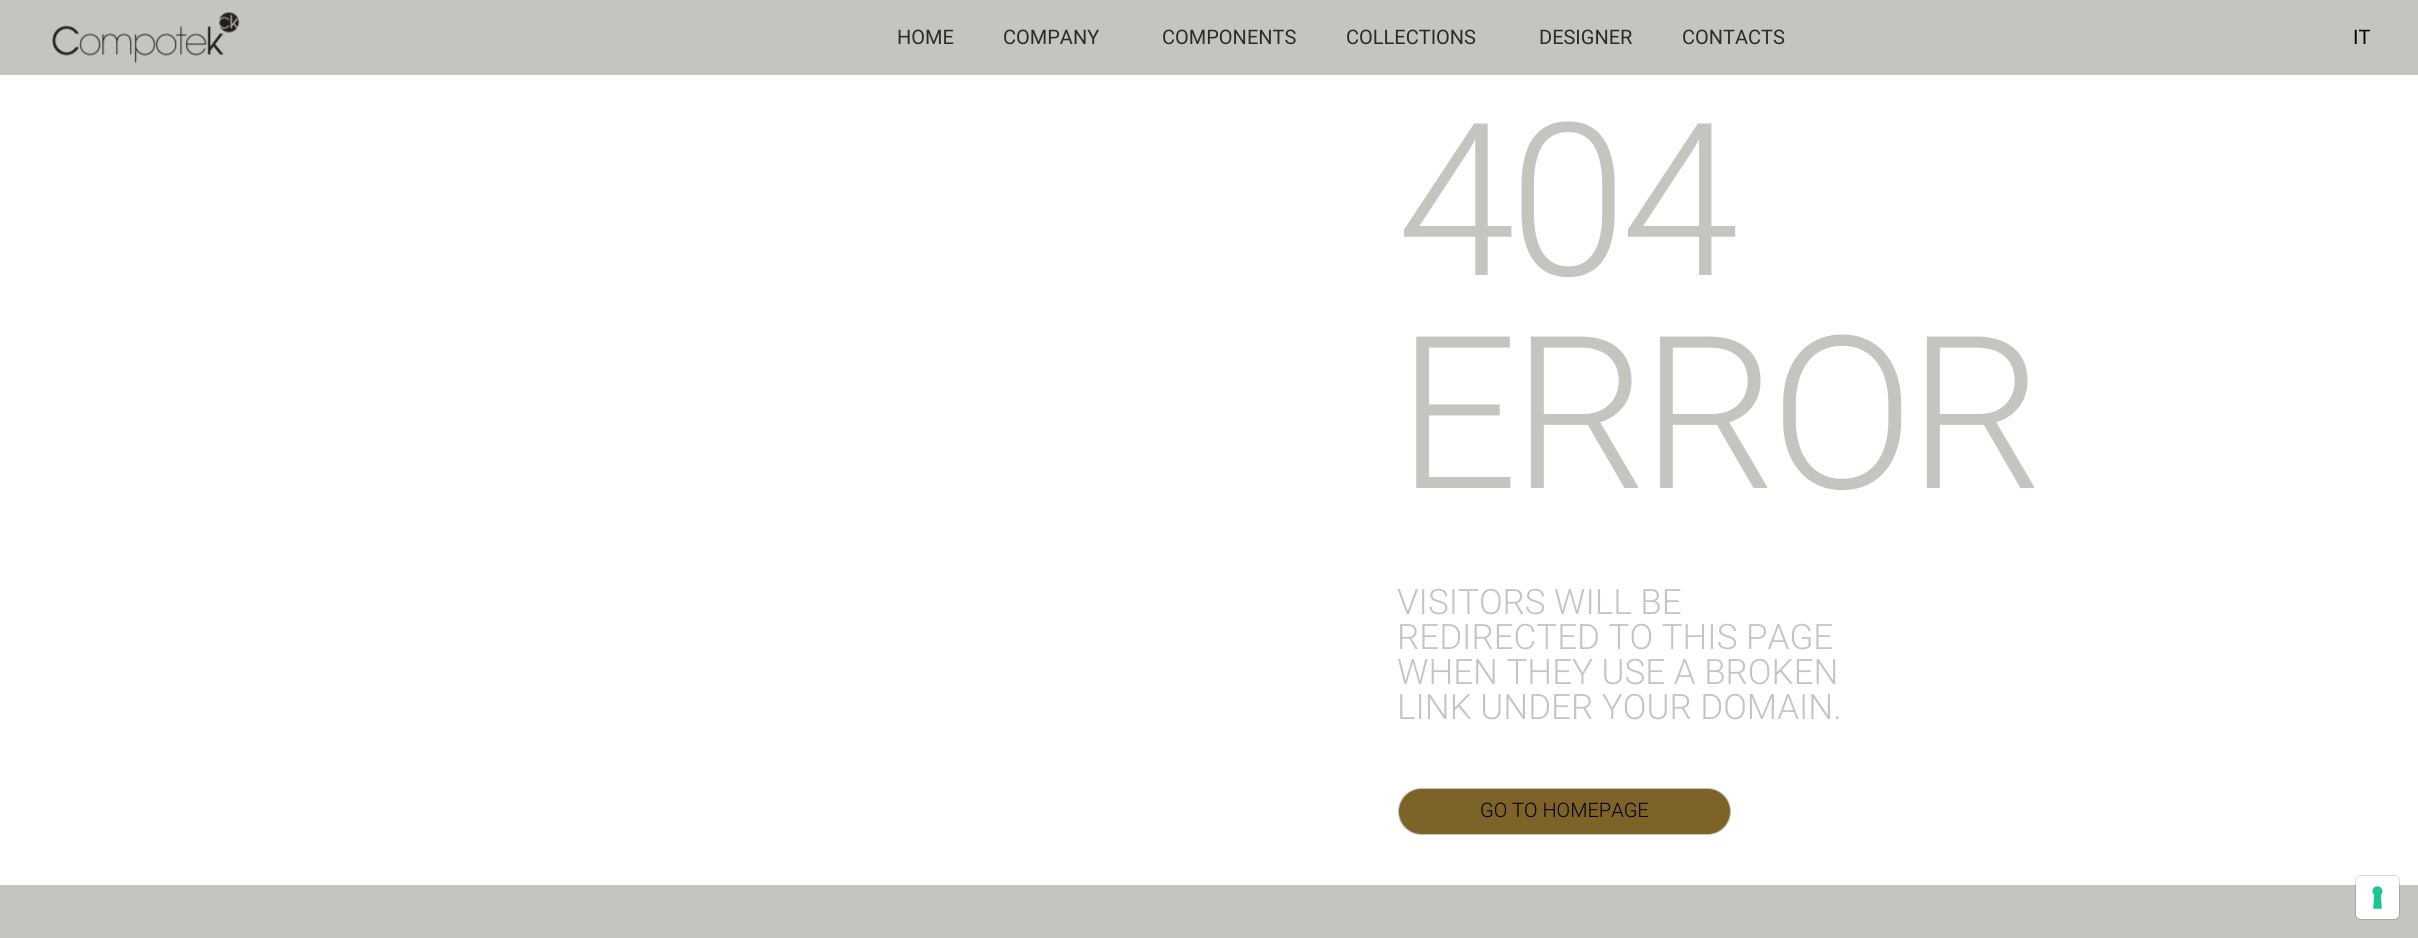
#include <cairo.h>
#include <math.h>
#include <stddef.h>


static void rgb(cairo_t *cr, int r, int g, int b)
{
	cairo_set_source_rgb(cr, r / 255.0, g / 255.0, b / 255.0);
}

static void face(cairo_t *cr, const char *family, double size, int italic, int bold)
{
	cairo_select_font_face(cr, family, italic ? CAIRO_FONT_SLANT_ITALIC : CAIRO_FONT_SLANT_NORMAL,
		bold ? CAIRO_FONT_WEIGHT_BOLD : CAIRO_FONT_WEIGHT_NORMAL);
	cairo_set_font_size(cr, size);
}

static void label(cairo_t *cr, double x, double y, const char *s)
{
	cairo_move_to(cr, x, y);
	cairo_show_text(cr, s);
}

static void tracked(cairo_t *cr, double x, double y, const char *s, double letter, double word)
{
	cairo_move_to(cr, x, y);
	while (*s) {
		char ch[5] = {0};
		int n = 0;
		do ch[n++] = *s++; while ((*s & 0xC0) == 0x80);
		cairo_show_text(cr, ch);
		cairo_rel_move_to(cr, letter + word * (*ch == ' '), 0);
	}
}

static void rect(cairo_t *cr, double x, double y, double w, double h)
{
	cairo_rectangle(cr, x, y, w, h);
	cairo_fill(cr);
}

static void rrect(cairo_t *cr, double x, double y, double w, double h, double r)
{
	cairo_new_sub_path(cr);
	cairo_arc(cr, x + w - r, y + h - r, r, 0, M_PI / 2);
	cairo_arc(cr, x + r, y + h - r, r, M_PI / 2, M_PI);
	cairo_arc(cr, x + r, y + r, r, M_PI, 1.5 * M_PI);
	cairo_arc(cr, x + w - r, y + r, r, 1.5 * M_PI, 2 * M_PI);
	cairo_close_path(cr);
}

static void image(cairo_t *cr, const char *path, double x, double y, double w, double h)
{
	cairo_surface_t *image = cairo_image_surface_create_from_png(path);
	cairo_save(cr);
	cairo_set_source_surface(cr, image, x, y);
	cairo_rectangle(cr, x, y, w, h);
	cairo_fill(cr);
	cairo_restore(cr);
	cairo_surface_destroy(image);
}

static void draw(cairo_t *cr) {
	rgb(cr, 255, 255, 255);
	cairo_paint(cr);
	rgb(cr, 198, 196, 191);
	rect(cr, 0, 0, 2418, 75);
	image(cr, "image0.png", 52, 12, 188, 51);
	face(cr, "Roboto", 20, 0, 0);
	rgb(cr, 43, 43, 43);
	label(cr, 897, 44, "HOME");
	label(cr, 1003, 44, "COMPANY");
	label(cr, 1162, 44, "COMPONENTS");
	label(cr, 1346, 44, "COLLECTIONS");
	label(cr, 1539, 44, "DESIGNER");
	label(cr, 1682, 44, "CONTACTS");
	rgb(cr, 0, 0, 0);
	label(cr, 2353, 44, "IT");
	face(cr, "Roboto Light", 213, 0, 0);
	rgb(cr, 198, 196, 191);
	tracked(cr, 1397, 275, "404", -6.25, 0);
	tracked(cr, 1397, 488, "ERROR", -6.25, 0);
	face(cr, "Roboto Light", 35, 0, 0);
	label(cr, 1397, 614, "VISITORS WILL BE");
	label(cr, 1397, 649, "REDIRECTED TO THIS PAGE");
	label(cr, 1397, 684, "WHEN THEY USE A BROKEN");
	label(cr, 1397, 719, "LINK UNDER YOUR DOMAIN.");
	rgb(cr, 126, 99, 40);
	rrect(cr, 1398.5, 788.5, 332, 46, 23);
	cairo_fill_preserve(cr);
	rgb(cr, 198, 196, 191);
	cairo_set_line_width(cr, 1);
	cairo_stroke(cr);
	face(cr, "Roboto Light", 20, 0, 0);
	rgb(cr, 0, 0, 0);
	label(cr, 1480, 817, "GO TO HOMEPAGE");
	rgb(cr, 198, 196, 191);
	rect(cr, 0, 885, 2418, 53);
	rrect(cr, 2355.5, 875.5, 44, 44, 5.5);
	cairo_set_source_rgba(cr, 0, 0, 0, 0.15);
	cairo_stroke(cr);
	rgb(cr, 255, 255, 255);
	rrect(cr, 2356, 876, 43, 43, 5);
	cairo_fill(cr);
	image(cr, "image1.png", 2372, 886, 11, 23);
}

int main(void) {
	cairo_surface_t *surface = cairo_image_surface_create(CAIRO_FORMAT_RGB24, 2418, 938);
	cairo_t *cr = cairo_create(surface);
	cairo_font_options_t *options = cairo_font_options_create();
	cairo_font_options_set_hint_metrics(options, CAIRO_HINT_METRICS_OFF);
	cairo_font_options_set_hint_style(options, CAIRO_HINT_STYLE_NONE);
	cairo_set_font_options(cr, options);
	cairo_set_miter_limit(cr, 4);
	draw(cr);
	cairo_surface_write_to_png(surface, "render.png");
	cairo_font_options_destroy(options);
	cairo_destroy(cr);
	cairo_surface_destroy(surface);
	return 0;
}
